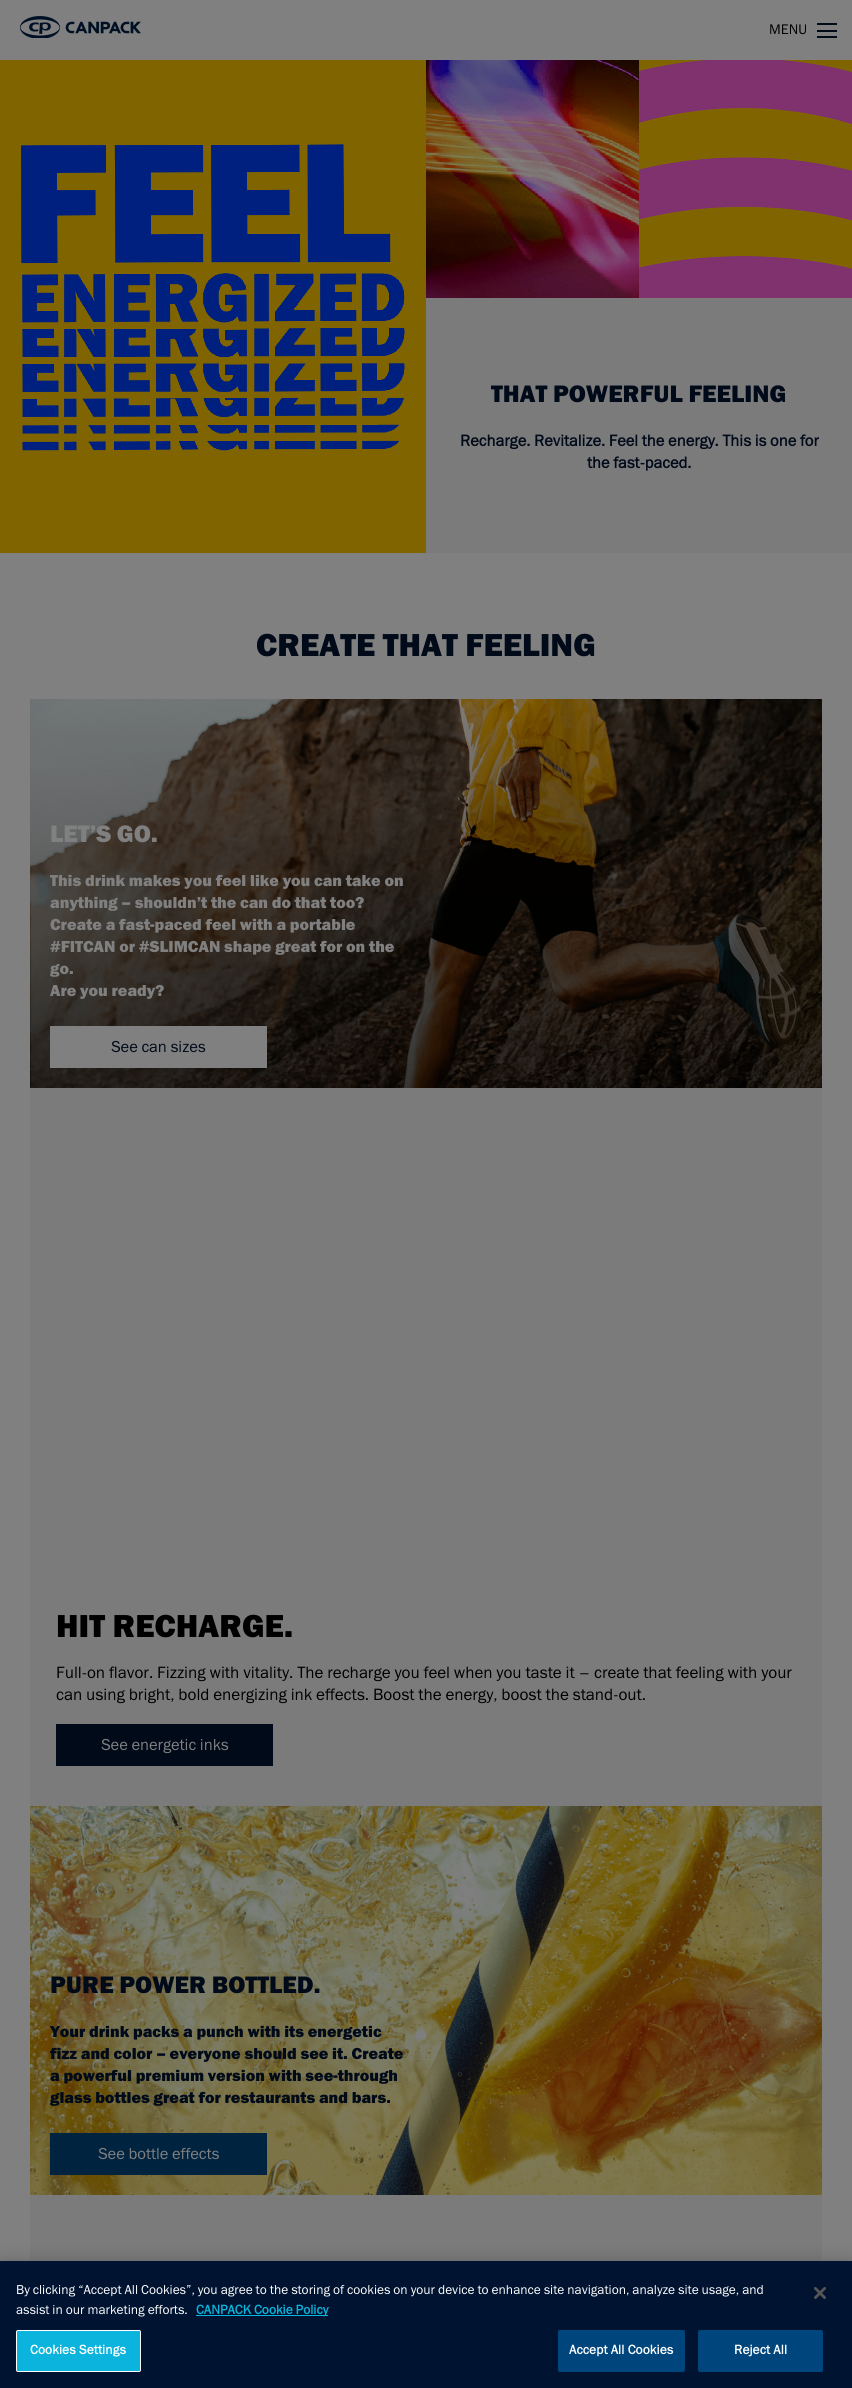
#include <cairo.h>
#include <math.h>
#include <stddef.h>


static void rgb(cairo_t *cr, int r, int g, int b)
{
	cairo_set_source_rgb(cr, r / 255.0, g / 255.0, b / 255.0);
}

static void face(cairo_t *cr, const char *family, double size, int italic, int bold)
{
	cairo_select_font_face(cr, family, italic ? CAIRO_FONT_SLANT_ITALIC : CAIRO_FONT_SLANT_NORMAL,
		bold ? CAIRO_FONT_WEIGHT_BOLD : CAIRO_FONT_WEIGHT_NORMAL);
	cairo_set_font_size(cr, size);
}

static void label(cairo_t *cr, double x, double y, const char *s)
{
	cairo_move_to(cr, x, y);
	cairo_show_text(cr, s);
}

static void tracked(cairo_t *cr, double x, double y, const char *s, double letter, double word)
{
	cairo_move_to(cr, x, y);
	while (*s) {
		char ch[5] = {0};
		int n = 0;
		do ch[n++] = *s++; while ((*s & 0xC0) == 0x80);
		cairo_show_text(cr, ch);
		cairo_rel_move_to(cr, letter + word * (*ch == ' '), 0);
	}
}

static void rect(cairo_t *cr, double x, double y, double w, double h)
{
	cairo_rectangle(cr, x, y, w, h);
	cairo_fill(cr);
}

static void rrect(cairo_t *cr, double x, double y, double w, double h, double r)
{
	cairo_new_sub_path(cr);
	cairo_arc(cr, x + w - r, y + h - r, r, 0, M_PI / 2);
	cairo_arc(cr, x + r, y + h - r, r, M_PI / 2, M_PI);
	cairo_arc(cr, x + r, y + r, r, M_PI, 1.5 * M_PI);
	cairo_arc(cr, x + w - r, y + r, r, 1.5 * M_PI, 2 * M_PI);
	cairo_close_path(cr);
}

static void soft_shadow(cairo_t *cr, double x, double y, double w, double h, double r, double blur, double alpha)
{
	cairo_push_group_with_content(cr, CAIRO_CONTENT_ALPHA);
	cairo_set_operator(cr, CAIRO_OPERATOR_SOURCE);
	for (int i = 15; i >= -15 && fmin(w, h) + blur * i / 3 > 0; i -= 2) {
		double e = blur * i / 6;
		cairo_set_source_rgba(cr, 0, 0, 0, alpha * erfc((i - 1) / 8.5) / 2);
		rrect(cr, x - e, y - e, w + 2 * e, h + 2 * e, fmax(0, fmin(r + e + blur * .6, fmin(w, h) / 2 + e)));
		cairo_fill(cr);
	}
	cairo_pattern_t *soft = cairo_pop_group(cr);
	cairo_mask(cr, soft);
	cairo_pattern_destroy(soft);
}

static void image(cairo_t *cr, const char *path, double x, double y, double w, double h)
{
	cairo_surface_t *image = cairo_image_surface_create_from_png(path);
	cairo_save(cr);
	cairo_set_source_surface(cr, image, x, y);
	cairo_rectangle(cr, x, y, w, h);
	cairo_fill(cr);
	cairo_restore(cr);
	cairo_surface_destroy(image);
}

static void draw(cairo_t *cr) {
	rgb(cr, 128, 128, 128);
	cairo_paint(cr);
	image(cr, "image0.png", 20, 16, 121, 22);
	face(cr, "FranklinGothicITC", 14, 0, 0);
	rgb(cr, 0, 0, 0);
	label(cr, 769, 34, "MENU");
	rgb(cr, 0, 10, 25);
	rect(cr, 817, 23, 20, 2);
	rect(cr, 817, 30, 20, 2);
	rect(cr, 817, 36, 20, 2);
	image(cr, "image1.png", 0, 60, 426, 493);
	image(cr, "image2.png", 426, 60, 213, 238);
	image(cr, "image3.png", 639, 60, 213, 238);
	rgb(cr, 123, 123, 123);
	rect(cr, 426, 298, 426, 255);
	face(cr, "FranklinGothicITC Black", 24, 0, 0);
	rgb(cr, 0, 10, 25);
	label(cr, 491, 402, "THAT POWERFUL FEELING");
	face(cr, "FranklinGothicITC", 16, 0, 1);
	label(cr, 460, 446, "Recharge. Revitalize. Feel the energy. This is one for");
	label(cr, 587, 468, "the fast-paced.");
	face(cr, "FranklinGothicITC Black", 32, 0, 0);
	label(cr, 256, 656, "CREATE THAT FEELING");
	image(cr, "image4.png", 30, 699, 792, 389);
	face(cr, "FranklinGothicITC Black", 24, 0, 0);
	rgb(cr, 128, 128, 128);
	label(cr, 50, 842, "LET’S GO.");
	face(cr, "FranklinGothicITC Black", 16, 0, 0);
	label(cr, 50, 886, "This drink makes you feel like you can take on");
	label(cr, 50, 908, "anything – shouldn’t the can do that too?");
	label(cr, 50, 930, "Create a fast-paced feel with a portable");
	label(cr, 50, 952, "#FITCAN or #SLIMCAN shape great for on the");
	label(cr, 50, 974, "go.");
	label(cr, 50, 996, "Are you ready?");
	rect(cr, 50, 1026, 217, 42);
	face(cr, "FranklinGothicITC", 16, 0, 0);
	rgb(cr, 0, 10, 25);
	label(cr, 111, 1052, "See can sizes");
	rgb(cr, 123, 123, 123);
	rect(cr, 30, 1088, 792, 718);
	face(cr, "FranklinGothicITC Black", 32, 0, 0);
	rgb(cr, 0, 0, 0);
	label(cr, 56, 1637, "HIT RECHARGE.");
	face(cr, "FranklinGothicITC", 16.5, 0, 0);
	label(cr, 56, 1678, "Full-on flavor. Fizzing with vitality. The recharge you feel when you taste it – create that feeling with your");
	label(cr, 56, 1700, "can using bright, bold energizing ink effects. Boost the energy, boost the stand-out.");
	rgb(cr, 0, 10, 25);
	rect(cr, 56, 1724, 217, 42);
	face(cr, "FranklinGothicITC", 16, 0, 0);
	rgb(cr, 128, 128, 128);
	label(cr, 101, 1750, "See energetic inks");
	image(cr, "image5.png", 30, 1806, 792, 389);
	face(cr, "FranklinGothicITC Black", 24, 0, 0);
	rgb(cr, 0, 10, 25);
	label(cr, 50, 1993, "PURE POWER BOTTLED.");
	face(cr, "FranklinGothicITC Black", 16, 0, 0);
	label(cr, 50, 2037, "Your drink packs a punch with its energetic");
	label(cr, 50, 2059, "fizz and color – everyone should see it. Create");
	label(cr, 50, 2081, "a powerful premium version with see-through");
	label(cr, 50, 2103, "glass bottles great for restaurants and bars.");
	rgb(cr, 0, 35, 63);
	rect(cr, 50, 2133, 217, 42);
	face(cr, "FranklinGothicITC", 16, 0, 0);
	rgb(cr, 128, 128, 128);
	label(cr, 98, 2159, "See bottle effects");
	rgb(cr, 123, 123, 123);
	rect(cr, 30, 2195, 792, 66);
	rgb(cr, 0, 0, 0);
	soft_shadow(cr, 0, 2261, 852, 127, 0, 9, 0.2);
	rgb(cr, 0, 20, 50);
	rect(cr, 0, 2261, 852, 127);
	face(cr, "FranklinGothicITC", 13, 0, 0);
	rgb(cr, 255, 255, 255);
	label(cr, 16, 2294, "By clicking “Accept All Cookies”, you agree to the storing of cookies on your device to enhance site navigation, analyze site usage, and");
	label(cr, 16, 2314, "assist in our marketing efforts.");
	rgb(cr, 10, 180, 220);
	rect(cr, 196, 2315, 132, 1);
	face(cr, "FranklinGothicITC", 13, 0, 1);
	label(cr, 196, 2314, "CANPACK Cookie Policy");
	rrect(cr, 16.5, 2330.5, 124, 41, 1.5);
	cairo_fill_preserve(cr);
	rgb(cr, 255, 255, 255);
	cairo_set_line_width(cr, 1);
	cairo_stroke(cr);
	tracked(cr, 30, 2354, "Cookies Settings", 0.1, 0);
	rgb(cr, 0, 70, 125);
	rrect(cr, 558.5, 2330.5, 126, 41, 1.5);
	cairo_fill_preserve(cr);
	cairo_stroke(cr);
	rgb(cr, 255, 255, 255);
	tracked(cr, 569, 2354, "Accept All Cookies", 0.1, 0);
	rgb(cr, 0, 70, 125);
	rrect(cr, 698.5, 2330.5, 124, 41, 1.5);
	cairo_fill_preserve(cr);
	cairo_stroke(cr);
	rgb(cr, 255, 255, 255);
	tracked(cr, 734, 2354, "Reject All", 0.1, 0);
	image(cr, "image6.png", 814, 2287, 12, 12);
}

int main(void) {
	cairo_surface_t *surface = cairo_image_surface_create(CAIRO_FORMAT_RGB24, 852, 2388);
	cairo_t *cr = cairo_create(surface);
	cairo_font_options_t *options = cairo_font_options_create();
	cairo_font_options_set_hint_metrics(options, CAIRO_HINT_METRICS_OFF);
	cairo_font_options_set_hint_style(options, CAIRO_HINT_STYLE_NONE);
	cairo_set_font_options(cr, options);
	cairo_set_miter_limit(cr, 4);
	draw(cr);
	cairo_surface_write_to_png(surface, "render.png");
	cairo_font_options_destroy(options);
	cairo_destroy(cr);
	cairo_surface_destroy(surface);
	return 0;
}
